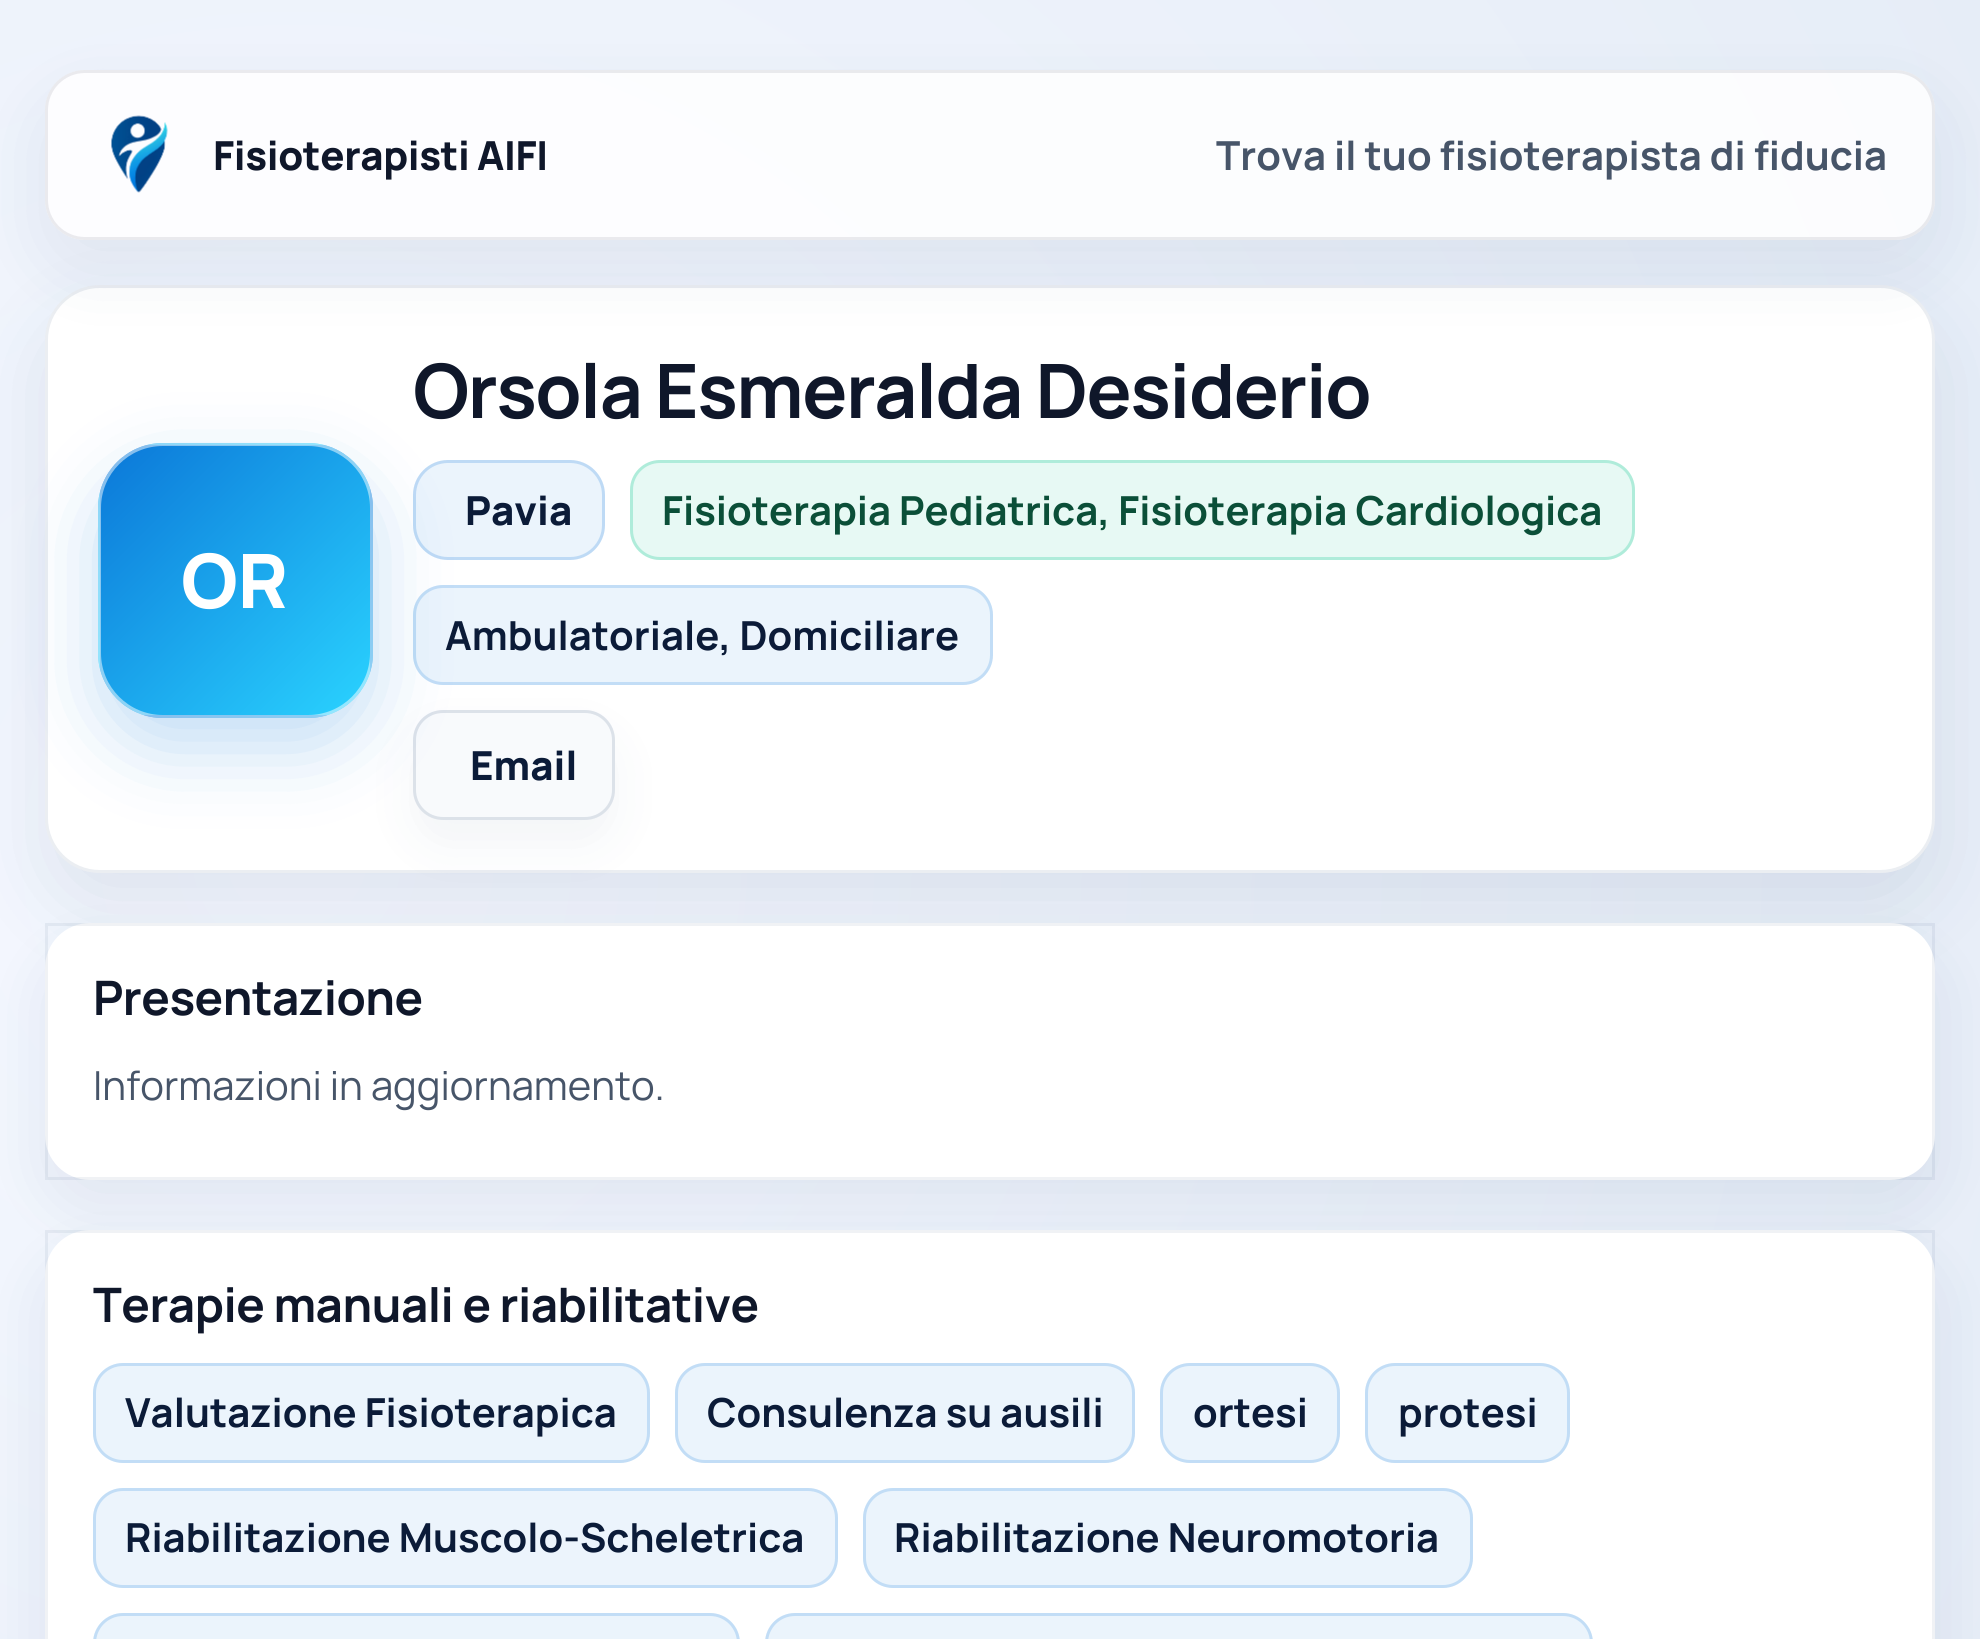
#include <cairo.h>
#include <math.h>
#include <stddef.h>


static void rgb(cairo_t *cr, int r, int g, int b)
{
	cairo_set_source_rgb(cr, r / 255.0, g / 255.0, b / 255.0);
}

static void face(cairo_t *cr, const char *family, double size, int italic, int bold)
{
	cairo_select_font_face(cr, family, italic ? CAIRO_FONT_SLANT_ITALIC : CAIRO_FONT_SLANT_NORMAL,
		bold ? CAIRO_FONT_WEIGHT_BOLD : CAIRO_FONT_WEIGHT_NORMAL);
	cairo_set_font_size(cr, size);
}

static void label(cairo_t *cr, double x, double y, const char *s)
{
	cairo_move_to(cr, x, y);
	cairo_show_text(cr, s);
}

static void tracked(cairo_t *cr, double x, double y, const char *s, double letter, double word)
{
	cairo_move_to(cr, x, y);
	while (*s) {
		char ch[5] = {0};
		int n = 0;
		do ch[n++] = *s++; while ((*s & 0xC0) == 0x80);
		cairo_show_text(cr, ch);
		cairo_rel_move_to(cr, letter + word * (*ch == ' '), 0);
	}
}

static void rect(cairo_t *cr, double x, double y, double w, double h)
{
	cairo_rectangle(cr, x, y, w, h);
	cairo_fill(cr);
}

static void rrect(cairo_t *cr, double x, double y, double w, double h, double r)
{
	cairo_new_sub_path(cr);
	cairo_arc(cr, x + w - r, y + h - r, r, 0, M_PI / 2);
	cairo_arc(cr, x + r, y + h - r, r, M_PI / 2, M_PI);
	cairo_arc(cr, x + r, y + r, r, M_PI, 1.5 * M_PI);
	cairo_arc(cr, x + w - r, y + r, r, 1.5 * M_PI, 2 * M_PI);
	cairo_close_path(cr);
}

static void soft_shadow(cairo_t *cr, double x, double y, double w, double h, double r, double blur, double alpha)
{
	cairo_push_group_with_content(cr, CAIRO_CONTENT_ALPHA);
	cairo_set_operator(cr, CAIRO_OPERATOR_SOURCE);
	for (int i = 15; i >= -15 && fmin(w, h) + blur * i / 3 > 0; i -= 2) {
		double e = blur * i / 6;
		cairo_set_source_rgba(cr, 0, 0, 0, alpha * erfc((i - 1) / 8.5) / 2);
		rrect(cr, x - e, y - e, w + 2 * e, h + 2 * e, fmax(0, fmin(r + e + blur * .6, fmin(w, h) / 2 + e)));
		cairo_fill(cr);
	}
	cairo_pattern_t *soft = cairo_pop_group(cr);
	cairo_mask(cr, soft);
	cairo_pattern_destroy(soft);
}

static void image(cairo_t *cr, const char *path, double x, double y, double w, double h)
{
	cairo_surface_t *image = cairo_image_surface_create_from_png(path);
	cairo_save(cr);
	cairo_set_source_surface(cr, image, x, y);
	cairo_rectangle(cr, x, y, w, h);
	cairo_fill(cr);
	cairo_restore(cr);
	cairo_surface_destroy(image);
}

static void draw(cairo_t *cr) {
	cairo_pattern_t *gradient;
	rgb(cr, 255, 255, 255);
	cairo_paint(cr);
	gradient = cairo_pattern_create_radial(297, 856, 0, 297, 856, 3815);
	cairo_pattern_add_color_stop_rgba(gradient, 0, 0.961, 0.973, 1, 1);
	cairo_pattern_add_color_stop_rgba(gradient, 0.5, 0.902, 0.929, 0.969, 1);
	cairo_pattern_add_color_stop_rgba(gradient, 1, 0.867, 0.902, 0.957, 1);
	cairo_set_source(cr, gradient);
	cairo_pattern_destroy(gradient);
	rect(cr, 0, 0, 1980, 1639);
	rgb(cr, 12, 44, 99);
	soft_shadow(cr, 45, 320, 1890, 588, 55, 40, 0.1);
	rgb(cr, 255, 255, 255);
	rrect(cr, 45, 285, 1890, 588, 55);
	cairo_fill(cr);
	rrect(cr, 46.5, 286.5, 1887, 585, 53.5);
	cairo_set_source_rgba(cr, 0.047, 0.173, 0.388, 0.08);
	cairo_set_line_width(cr, 3);
	cairo_stroke(cr);
	cairo_save(cr);
	cairo_set_fill_rule(cr, CAIRO_FILL_RULE_EVEN_ODD);
	cairo_new_path(cr);
	cairo_move_to(cr, 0, 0);
	cairo_line_to(cr, 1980, 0);
	cairo_line_to(cr, 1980, 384);
	cairo_line_to(cr, 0, 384);
	cairo_close_path(cr);
	cairo_move_to(cr, 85, 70);
	cairo_line_to(cr, 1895, 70);
	cairo_curve_to(cr, 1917, 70, 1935, 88, 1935, 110);
	cairo_line_to(cr, 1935, 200);
	cairo_curve_to(cr, 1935, 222, 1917, 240, 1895, 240);
	cairo_line_to(cr, 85, 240);
	cairo_curve_to(cr, 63, 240, 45, 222, 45, 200);
	cairo_line_to(cr, 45, 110);
	cairo_curve_to(cr, 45, 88, 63, 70, 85, 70);
	cairo_close_path(cr);
	cairo_clip(cr);
	rgb(cr, 12, 44, 99);
	soft_shadow(cr, 45, 100, 1890, 170, 40, 37.5, 0.08);
	cairo_restore(cr);
	cairo_set_source_rgba(cr, 1, 1, 1, 0.85);
	rrect(cr, 45, 70, 1890, 170, 40);
	cairo_fill(cr);
	rrect(cr, 46.5, 71.5, 1887, 167, 38.5);
	cairo_set_source_rgba(cr, 0.059, 0.09, 0.165, 0.08);
	cairo_stroke(cr);
	image(cr, "image0.png", 111, 115, 57, 78);
	face(cr, "Manrope ExtraBold", 40, 0, 0);
	rgb(cr, 15, 23, 42);
	tracked(cr, 213, 170, "Fisioterapisti AIFI", -0.4, 0);
	face(cr, "Manrope", 40, 0, 1);
	rgb(cr, 71, 85, 105);
	label(cr, 1216, 170, "Trova il tuo fisioterapista di fiducia");
	rgb(cr, 235, 244, 252);
	rrect(cr, 413, 460, 192, 100, 35);
	cairo_fill(cr);
	rrect(cr, 414.5, 461.5, 189, 97, 33.5);
	cairo_set_source_rgba(cr, 0.043, 0.467, 0.847, 0.2);
	cairo_stroke(cr);
	rgb(cr, 235, 244, 252);
	rrect(cr, 413, 585, 580, 100, 30);
	cairo_fill(cr);
	rrect(cr, 414.5, 586.5, 577, 97, 28.5);
	cairo_set_source_rgba(cr, 0.043, 0.467, 0.847, 0.18);
	cairo_stroke(cr);
	rgb(cr, 12, 44, 99);
	soft_shadow(cr, 413, 735, 202, 110, 30, 25, 0.05);
	rgb(cr, 248, 250, 252);
	rrect(cr, 413, 710, 202, 110, 30);
	cairo_fill(cr);
	rrect(cr, 414.5, 711.5, 199, 107, 28.5);
	cairo_set_source_rgba(cr, 0.047, 0.173, 0.388, 0.12);
	cairo_stroke(cr);
	rgb(cr, 11, 119, 216);
	soft_shadow(cr, 98, 473, 275, 275, 65, 37.5, 0.25);
	cairo_save(cr);
	rrect(cr, 98, 443, 275, 275, 65);
	cairo_clip(cr);
	gradient = cairo_pattern_create_linear(100, 175, 370, 445);
	cairo_pattern_add_color_stop_rgba(gradient, 0, 0.043, 0.467, 0.847, 1);
	cairo_pattern_add_color_stop_rgba(gradient, 1, 0.165, 0.827, 1, 1);
	cairo_set_source(cr, gradient);
	cairo_pattern_destroy(gradient);
	rect(cr, 147, 443, 177, 2);
	gradient = cairo_pattern_create_linear(-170, 445, 100, 715);
	cairo_pattern_add_color_stop_rgba(gradient, 0, 0.043, 0.467, 0.847, 1);
	cairo_pattern_add_color_stop_rgba(gradient, 1, 0.165, 0.827, 1, 1);
	cairo_set_source(cr, gradient);
	cairo_pattern_destroy(gradient);
	rect(cr, 98, 492, 2, 177);
	gradient = cairo_pattern_create_linear(100, 445, 370, 715);
	cairo_pattern_add_color_stop_rgba(gradient, 0, 0.043, 0.467, 0.847, 1);
	cairo_pattern_add_color_stop_rgba(gradient, 1, 0.165, 0.827, 1, 1);
	cairo_set_source(cr, gradient);
	cairo_pattern_destroy(gradient);
	rect(cr, 100, 445, 270, 270);
	gradient = cairo_pattern_create_linear(370, 445, 640, 715);
	cairo_pattern_add_color_stop_rgba(gradient, 0, 0.043, 0.467, 0.847, 1);
	cairo_pattern_add_color_stop_rgba(gradient, 1, 0.165, 0.827, 1, 1);
	cairo_set_source(cr, gradient);
	cairo_pattern_destroy(gradient);
	rect(cr, 370, 488, 3, 185);
	gradient = cairo_pattern_create_linear(100, 715, 370, 985);
	cairo_pattern_add_color_stop_rgba(gradient, 0, 0.043, 0.467, 0.847, 1);
	cairo_pattern_add_color_stop_rgba(gradient, 1, 0.165, 0.827, 1, 1);
	cairo_set_source(cr, gradient);
	cairo_pattern_destroy(gradient);
	rect(cr, 143, 715, 185, 3);
	cairo_restore(cr);
	rrect(cr, 99.5, 444.5, 272, 272, 63.5);
	cairo_set_source_rgba(cr, 1, 1, 1, 0.5);
	cairo_stroke(cr);
	face(cr, "Manrope ExtraBold", 75, 0, 0);
	rgb(cr, 255, 255, 255);
	label(cr, 181, 608, "OR");
	face(cr, "Manrope", 75, 0, 1);
	rgb(cr, 15, 23, 42);
	tracked(cr, 413, 418, "Orsola Esmeralda Desiderio", -1.5, 0);
	face(cr, "Manrope ExtraBold", 40, 0, 0);
	rgb(cr, 11, 27, 56);
	label(cr, 465, 525, "Pavia");
	rgb(cr, 231, 249, 244);
	rrect(cr, 630, 460, 1005, 100, 30);
	cairo_fill(cr);
	rrect(cr, 631.5, 461.5, 1002, 97, 28.5);
	cairo_set_source_rgba(cr, 0.043, 0.769, 0.561, 0.25);
	cairo_stroke(cr);
	face(cr, "Manrope", 40, 0, 1);
	rgb(cr, 11, 79, 56);
	label(cr, 662, 525, "Fisioterapia Pediatrica, Fisioterapia Cardiologica");
	rgb(cr, 11, 27, 56);
	label(cr, 445, 650, "Ambulatoriale, Domiciliare");
	face(cr, "Manrope ExtraBold", 40, 0, 0);
	label(cr, 470, 780, "Email");
	rgb(cr, 12, 44, 99);
	soft_shadow(cr, 45, 953, 1890, 257, 45, 32.5, 0.08);
	rgb(cr, 255, 255, 255);
	rrect(cr, 45, 923, 1890, 257, 45);
	cairo_fill(cr);
	cairo_rectangle(cr, 46.5, 924.5, 1887, 254);
	cairo_set_source_rgba(cr, 0.047, 0.173, 0.388, 0.06);
	cairo_stroke(cr);
	face(cr, "Manrope", 47.5, 0, 1);
	rgb(cr, 15, 23, 42);
	tracked(cr, 93, 1015, "Presentazione", -0.5, 0);
	face(cr, "Manrope", 40, 0, 0);
	rgb(cr, 71, 85, 105);
	label(cr, 93, 1100, "Informazioni in aggiornamento.");
	rgb(cr, 12, 44, 99);
	soft_shadow(cr, 45, 1260, 1890, 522, 45, 32.5, 0.08);
	rgb(cr, 255, 255, 255);
	rrect(cr, 45, 1230, 1890, 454, 45);
	cairo_fill(cr);
	cairo_rectangle(cr, 46.5, 1231.5, 1887, 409);
	cairo_set_source_rgba(cr, 0.047, 0.173, 0.388, 0.06);
	cairo_stroke(cr);
	face(cr, "Manrope", 47.5, 0, 1);
	rgb(cr, 15, 23, 42);
	tracked(cr, 93, 1322, "Terapie manuali e riabilitative", -0.5, 0);
	rgb(cr, 235, 244, 252);
	rrect(cr, 93, 1363, 557, 100, 30);
	cairo_fill(cr);
	rrect(cr, 94.5, 1364.5, 554, 97, 28.5);
	cairo_set_source_rgba(cr, 0.043, 0.467, 0.847, 0.18);
	cairo_stroke(cr);
	face(cr, "Manrope", 40, 0, 1);
	rgb(cr, 11, 27, 56);
	label(cr, 125, 1427, "Valutazione Fisioterapica");
	rgb(cr, 235, 244, 252);
	rrect(cr, 675, 1363, 460, 100, 30);
	cairo_fill(cr);
	rrect(cr, 676.5, 1364.5, 457, 97, 28.5);
	cairo_set_source_rgba(cr, 0.043, 0.467, 0.847, 0.18);
	cairo_stroke(cr);
	rgb(cr, 11, 27, 56);
	label(cr, 707, 1427, "Consulenza su ausili");
	rgb(cr, 235, 244, 252);
	rrect(cr, 1160, 1363, 180, 100, 30);
	cairo_fill(cr);
	rrect(cr, 1161.5, 1364.5, 177, 97, 28.5);
	cairo_set_source_rgba(cr, 0.043, 0.467, 0.847, 0.18);
	cairo_stroke(cr);
	rgb(cr, 11, 27, 56);
	label(cr, 1193, 1427, "ortesi");
	rgb(cr, 235, 244, 252);
	rrect(cr, 1365, 1363, 205, 100, 30);
	cairo_fill(cr);
	rrect(cr, 1366.5, 1364.5, 202, 97, 28.5);
	cairo_set_source_rgba(cr, 0.043, 0.467, 0.847, 0.18);
	cairo_stroke(cr);
	rgb(cr, 11, 27, 56);
	label(cr, 1398, 1427, "protesi");
	rgb(cr, 236, 244, 252);
	rrect(cr, 93, 1488, 745, 100, 30);
	cairo_fill(cr);
	rrect(cr, 94.5, 1489.5, 742, 97, 28.5);
	cairo_set_source_rgba(cr, 0.043, 0.467, 0.847, 0.18);
	cairo_stroke(cr);
	rgb(cr, 11, 27, 56);
	label(cr, 125, 1552, "Riabilitazione Muscolo-Scheletrica");
	rgb(cr, 235, 244, 252);
	rrect(cr, 863, 1488, 610, 100, 30);
	cairo_fill(cr);
	rrect(cr, 864.5, 1489.5, 607, 97, 28.5);
	cairo_set_source_rgba(cr, 0.043, 0.467, 0.847, 0.18);
	cairo_stroke(cr);
	rgb(cr, 11, 27, 56);
	label(cr, 894, 1552, "Riabilitazione Neuromotoria");
	rgb(cr, 235, 244, 252);
	rrect(cr, 93, 1613, 647, 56, 30);
	cairo_fill(cr);
	rrect(cr, 94.5, 1614.5, 644, 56, 28.5);
	cairo_set_source_rgba(cr, 0.043, 0.467, 0.847, 0.18);
	cairo_stroke(cr);
	rgb(cr, 235, 244, 252);
	rrect(cr, 765, 1613, 828, 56, 30);
	cairo_fill(cr);
	rrect(cr, 766.5, 1614.5, 825, 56, 28.5);
	cairo_set_source_rgba(cr, 0.043, 0.467, 0.847, 0.18);
	cairo_stroke(cr);
}

int main(void) {
	cairo_surface_t *surface = cairo_image_surface_create(CAIRO_FORMAT_RGB24, 1980, 1639);
	cairo_t *cr = cairo_create(surface);
	cairo_font_options_t *options = cairo_font_options_create();
	cairo_font_options_set_hint_metrics(options, CAIRO_HINT_METRICS_OFF);
	cairo_font_options_set_hint_style(options, CAIRO_HINT_STYLE_NONE);
	cairo_set_font_options(cr, options);
	cairo_set_miter_limit(cr, 4);
	draw(cr);
	cairo_surface_write_to_png(surface, "render.png");
	cairo_font_options_destroy(options);
	cairo_destroy(cr);
	cairo_surface_destroy(surface);
	return 0;
}
